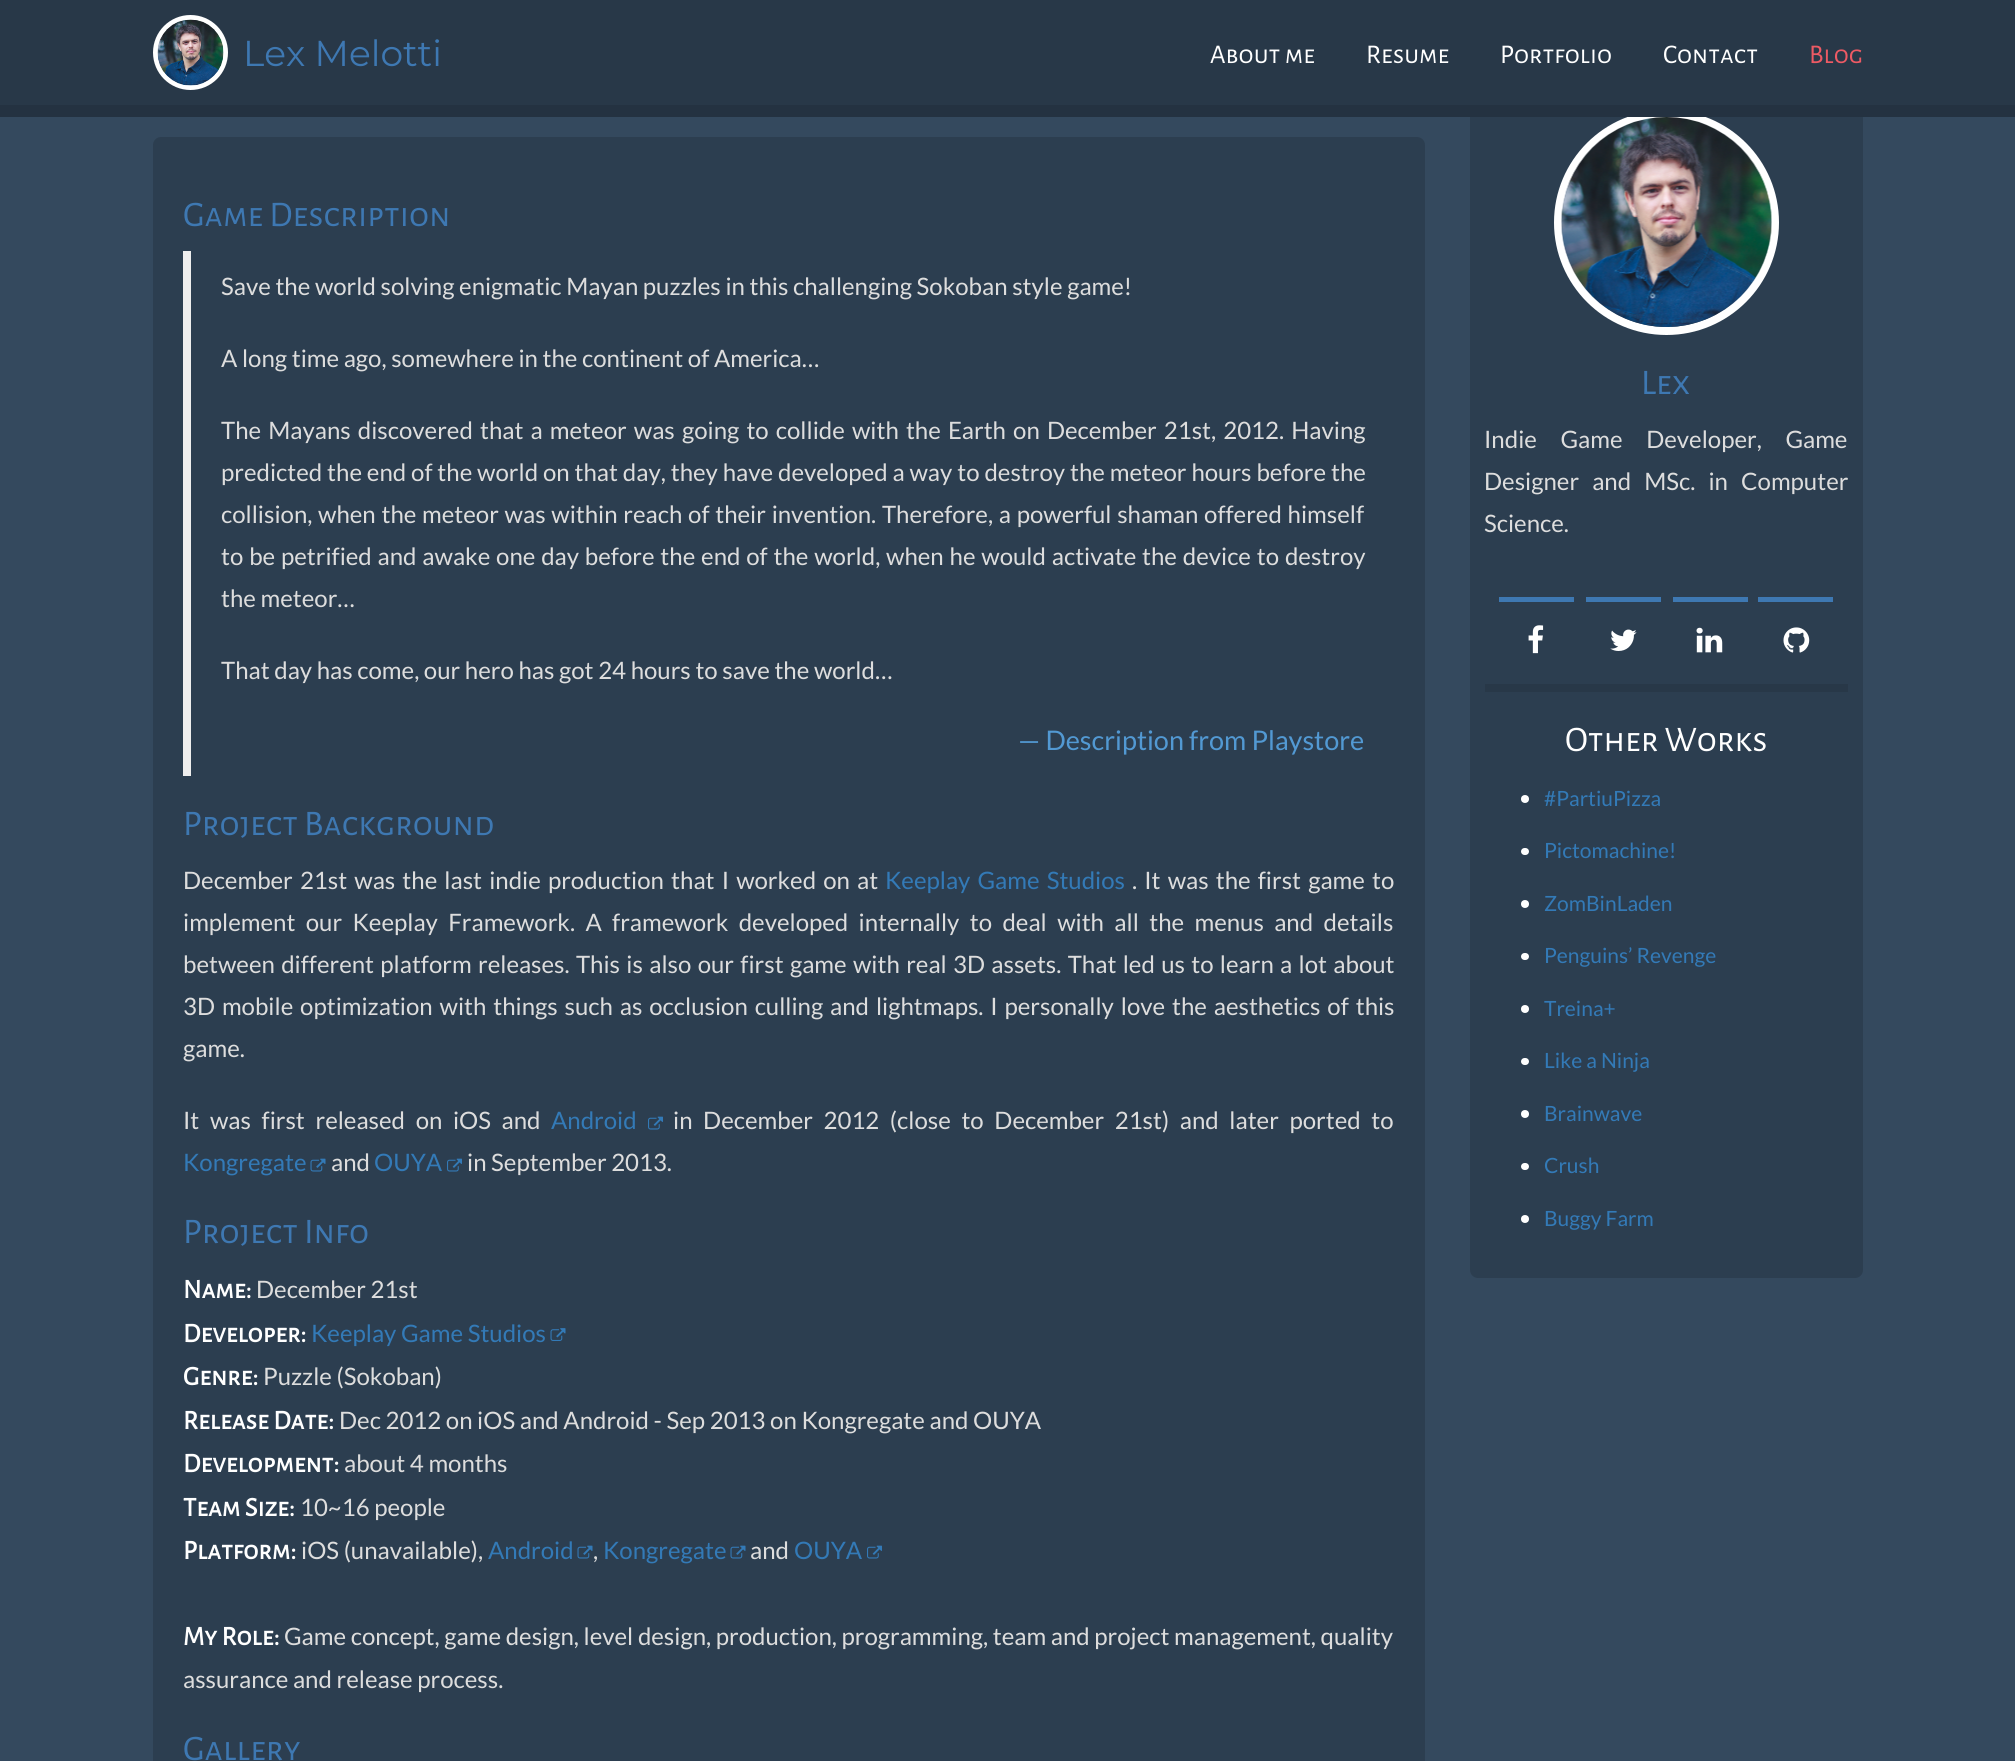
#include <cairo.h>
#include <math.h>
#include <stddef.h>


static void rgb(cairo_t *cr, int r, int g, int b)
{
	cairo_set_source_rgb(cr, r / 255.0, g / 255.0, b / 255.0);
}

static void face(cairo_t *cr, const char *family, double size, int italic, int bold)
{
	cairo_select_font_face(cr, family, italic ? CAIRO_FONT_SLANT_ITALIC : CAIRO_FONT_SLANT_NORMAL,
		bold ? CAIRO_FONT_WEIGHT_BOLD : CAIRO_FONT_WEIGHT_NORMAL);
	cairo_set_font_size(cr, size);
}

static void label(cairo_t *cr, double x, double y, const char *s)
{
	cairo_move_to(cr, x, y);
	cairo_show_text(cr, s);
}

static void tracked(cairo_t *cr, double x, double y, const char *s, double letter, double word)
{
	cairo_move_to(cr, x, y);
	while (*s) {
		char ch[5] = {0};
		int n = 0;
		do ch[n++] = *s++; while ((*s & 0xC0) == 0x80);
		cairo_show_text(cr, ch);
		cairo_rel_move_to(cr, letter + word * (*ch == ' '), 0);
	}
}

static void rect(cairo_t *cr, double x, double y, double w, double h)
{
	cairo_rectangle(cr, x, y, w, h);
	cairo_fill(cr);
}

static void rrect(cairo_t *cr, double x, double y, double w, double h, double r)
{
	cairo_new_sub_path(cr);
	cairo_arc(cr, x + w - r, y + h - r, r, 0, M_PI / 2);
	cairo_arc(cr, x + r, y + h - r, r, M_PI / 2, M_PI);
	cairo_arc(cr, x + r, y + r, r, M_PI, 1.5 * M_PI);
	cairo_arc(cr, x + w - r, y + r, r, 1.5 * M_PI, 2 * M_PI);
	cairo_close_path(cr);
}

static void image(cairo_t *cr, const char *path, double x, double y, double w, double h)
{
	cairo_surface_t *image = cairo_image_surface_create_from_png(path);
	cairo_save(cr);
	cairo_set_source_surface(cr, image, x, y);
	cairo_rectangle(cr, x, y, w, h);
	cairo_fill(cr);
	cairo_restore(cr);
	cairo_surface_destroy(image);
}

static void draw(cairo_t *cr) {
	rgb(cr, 52, 73, 94);
	cairo_paint(cr);
	rgb(cr, 44, 62, 80);
	rrect(cr, 1470, 65, 393, 1213, 8);
	cairo_fill(cr);
	rgb(cr, 40, 56, 72);
	rect(cr, 0, 0, 2015, 105);
	cairo_arc(cr, 1666.5, 222.5, 108.5, 0, 2 * M_PI);
	rgb(cr, 255, 255, 255);
	cairo_set_line_width(cr, 8);
	cairo_stroke(cr);
	rgb(cr, 36, 50, 65);
	rect(cr, 0, 105, 2015, 12);
	cairo_arc(cr, 190.5, 52.5, 35, 0, 2 * M_PI);
	rgb(cr, 255, 255, 255);
	cairo_set_line_width(cr, 5);
	cairo_stroke(cr);
	image(cr, "image0.png", 157, 19, 67, 67);
	face(cr, "Montserrat Thin", 36, 0, 0);
	rgb(cr, 62, 120, 178);
	label(cr, 243, 66, "Lex Melotti");
	face(cr, "Alegreya Sans SC", 27, 0, 0);
	rgb(cr, 255, 255, 255);
	label(cr, 1210, 63, "About me");
	label(cr, 1366, 63, "Resume");
	label(cr, 1500, 63, "Portfolio");
	label(cr, 1663, 63, "Contact");
	rgb(cr, 237, 90, 100);
	label(cr, 1809, 63, "Blog");
	rgb(cr, 44, 62, 80);
	rrect(cr, 153, 137, 1272, 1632, 8);
	cairo_fill(cr);
	face(cr, "Alegreya Sans SC", 36, 0, 0);
	rgb(cr, 62, 120, 178);
	label(cr, 183, 226, "Game Description");
	rgb(cr, 238, 238, 238);
	rect(cr, 183, 251, 8, 525);
	face(cr, "Lato", 24, 0, 0);
	rgb(cr, 221, 221, 221);
	label(cr, 221, 295, "Save the world solving enigmatic Mayan puzzles in this challenging Sokoban style game!");
	label(cr, 221, 367, "A long time ago, somewhere in the continent of America…");
	tracked(cr, 221, 439, "The Mayans discovered that a meteor was going to collide with the Earth on December 21st, 2012. Having", 0, 2.5);
	tracked(cr, 221, 481, "predicted the end of the world on that day, they have developed a way to destroy the meteor hours before the", 0, 0.25);
	tracked(cr, 221, 523, "collision, when the meteor was within reach of their invention. Therefore, a powerful shaman offered himself", 0, 1.1);
	tracked(cr, 221, 565, "to be petrified and awake one day before the end of the world, when he would activate the device to destroy", 0, 1.2);
	label(cr, 221, 607, "the meteor…");
	label(cr, 221, 679, "That day has come, our hero has got 24 hours to save the world…");
	face(cr, "Lato", 27, 0, 0);
	rgb(cr, 82, 153, 211);
	label(cr, 1018, 750, "— Description from Playstore");
	face(cr, "Alegreya Sans SC", 36, 0, 0);
	rgb(cr, 62, 120, 178);
	label(cr, 183, 835, "Project Background");
	face(cr, "Lato", 24, 0, 0);
	rgb(cr, 221, 221, 221);
	tracked(cr, 183, 889, "December 21st was the last indie production that I worked on at", 0, 2.5);
	rgb(cr, 51, 122, 183);
	tracked(cr, 885, 889, "Keeplay Game Studios", 0, 2.5);
	rgb(cr, 221, 221, 221);
	tracked(cr, 1132, 889, ". It was the first game to", 0, 2.5);
	tracked(cr, 183, 931, "implement our Keeplay Framework. A framework developed internally to deal with all the menus and details", 0, 5.75);
	tracked(cr, 183, 973, "between different platform releases. This is also our first game with real 3D assets. That led us to learn a lot about", 0, 1.7);
	tracked(cr, 183, 1015, "3D mobile optimization with things such as occlusion culling and lightmaps. I personally love the aesthetics of this", 0, 2.25);
	label(cr, 183, 1057, "game.");
	tracked(cr, 183, 1129, "It was first released on iOS and", 0, 6);
	rgb(cr, 51, 122, 183);
	label(cr, 551, 1129, "Android");
	image(cr, "image1.png", 648, 1116, 15, 14);
	rgb(cr, 221, 221, 221);
	tracked(cr, 673, 1129, "in December 2012 (close to December 21st) and later ported to", 0, 6);
	rgb(cr, 51, 122, 183);
	label(cr, 183, 1171, "Kongregate");
	image(cr, "image2.png", 310, 1158, 16, 14);
	rgb(cr, 221, 221, 221);
	label(cr, 331, 1171, "and");
	rgb(cr, 51, 122, 183);
	label(cr, 374, 1171, "OUYA");
	image(cr, "image1.png", 447, 1158, 15, 14);
	rgb(cr, 221, 221, 221);
	label(cr, 467, 1171, "in September 2013.");
	face(cr, "Alegreya Sans SC", 36, 0, 0);
	rgb(cr, 62, 120, 178);
	label(cr, 183, 1243, "Project Info");
	face(cr, "Alegreya Sans SC", 27, 0, 1);
	rgb(cr, 255, 255, 255);
	label(cr, 183, 1298, "Name:");
	face(cr, "Lato", 24, 0, 0);
	rgb(cr, 221, 221, 221);
	label(cr, 256, 1298, "December 21st");
	face(cr, "Alegreya Sans SC", 27, 0, 1);
	rgb(cr, 255, 255, 255);
	label(cr, 183, 1342, "Developer:");
	face(cr, "Lato", 24, 0, 0);
	rgb(cr, 51, 122, 183);
	label(cr, 311, 1342, "Keeplay Game Studios");
	image(cr, "image3.png", 550, 1328, 16, 13);
	face(cr, "Alegreya Sans SC", 27, 0, 1);
	rgb(cr, 255, 255, 255);
	label(cr, 183, 1385, "Genre:");
	face(cr, "Lato", 24, 0, 0);
	rgb(cr, 221, 221, 221);
	label(cr, 263, 1385, "Puzzle (Sokoban)");
	face(cr, "Alegreya Sans SC", 27, 0, 1);
	rgb(cr, 255, 255, 255);
	label(cr, 183, 1429, "Release Date:");
	face(cr, "Lato", 24, 0, 0);
	rgb(cr, 221, 221, 221);
	label(cr, 339, 1429, "Dec 2012 on iOS and Android - Sep 2013 on Kongregate and OUYA");
	face(cr, "Alegreya Sans SC", 27, 0, 1);
	rgb(cr, 255, 255, 255);
	label(cr, 183, 1472, "Development:");
	face(cr, "Lato", 24, 0, 0);
	rgb(cr, 221, 221, 221);
	label(cr, 344, 1472, "about 4 months");
	face(cr, "Alegreya Sans SC", 27, 0, 1);
	rgb(cr, 255, 255, 255);
	label(cr, 183, 1516, "Team Size:");
	face(cr, "Lato", 24, 0, 0);
	rgb(cr, 221, 221, 221);
	label(cr, 300, 1516, "10~16 people");
	face(cr, "Alegreya Sans SC", 27, 0, 1);
	rgb(cr, 255, 255, 255);
	label(cr, 183, 1559, "Platform:");
	face(cr, "Lato", 24, 0, 0);
	rgb(cr, 221, 221, 221);
	label(cr, 301, 1559, "iOS (unavailable),");
	rgb(cr, 51, 122, 183);
	label(cr, 488, 1559, "Android");
	image(cr, "image2.png", 577, 1545, 16, 14);
	rgb(cr, 221, 221, 221);
	label(cr, 593, 1559, ",");
	rgb(cr, 51, 122, 183);
	label(cr, 603, 1559, "Kongregate");
	image(cr, "image2.png", 730, 1545, 16, 14);
	rgb(cr, 221, 221, 221);
	label(cr, 750, 1559, "and");
	rgb(cr, 51, 122, 183);
	label(cr, 794, 1559, "OUYA");
	image(cr, "image1.png", 867, 1545, 15, 14);
	face(cr, "Alegreya Sans SC", 27, 0, 1);
	rgb(cr, 255, 255, 255);
	label(cr, 183, 1645, "My Role:");
	face(cr, "Lato", 24, 0, 0);
	rgb(cr, 221, 221, 221);
	label(cr, 284, 1645, "Game concept, game design, level design, production, programming, team and project management, quality");
	label(cr, 183, 1688, "assurance and release process.");
	face(cr, "Alegreya Sans SC", 36, 0, 0);
	rgb(cr, 62, 120, 178);
	label(cr, 183, 1760, "Gallery");
	image(cr, "image4.png", 1561, 117, 211, 210);
	label(cr, 1641, 394, "Lex");
	face(cr, "Lato", 24, 0, 0);
	rgb(cr, 221, 221, 221);
	tracked(cr, 1484, 448, "Indie Game Developer, Game", 0, 19);
	tracked(cr, 1484, 490, "Designer and MSc. in Computer", 0, 8.5);
	label(cr, 1484, 532, "Science.");
	rgb(cr, 62, 120, 178);
	rect(cr, 1499, 597, 75, 5);
	image(cr, "image5.png", 1528, 625, 16, 29);
	rect(cr, 1586, 597, 75, 5);
	image(cr, "image6.png", 1610, 629, 27, 22);
	rect(cr, 1673, 597, 75, 5);
	image(cr, "image7.png", 1696, 627, 27, 26);
	rect(cr, 1758, 597, 75, 5);
	image(cr, "image8.png", 1783, 627, 27, 26);
	rgb(cr, 40, 56, 72);
	rect(cr, 1485, 684, 363, 8);
	face(cr, "Alegreya Sans SC", 36, 0, 0);
	rgb(cr, 255, 255, 255);
	label(cr, 1565, 751, "Other Works");
	cairo_new_path(cr);
	cairo_arc(cr, 1525, 799, 4, 0, 2 * M_PI);
	cairo_fill(cr);
	face(cr, "Lato", 21, 0, 0);
	rgb(cr, 51, 122, 183);
	label(cr, 1544, 806, "#PartiuPizza");
	rgb(cr, 255, 255, 255);
	rrect(cr, 1521, 848, 8, 7, 3.5);
	cairo_fill(cr);
	rgb(cr, 51, 122, 183);
	label(cr, 1544, 858, "Pictomachine!");
	rgb(cr, 255, 255, 255);
	cairo_new_path(cr);
	cairo_arc(cr, 1525, 904, 4, 0, 2 * M_PI);
	cairo_fill(cr);
	rgb(cr, 51, 122, 183);
	label(cr, 1544, 911, "ZomBinLaden");
	rgb(cr, 255, 255, 255);
	rrect(cr, 1521, 953, 8, 7, 3.5);
	cairo_fill(cr);
	rgb(cr, 51, 122, 183);
	label(cr, 1544, 963, "Penguins’ Revenge");
	rgb(cr, 255, 255, 255);
	cairo_new_path(cr);
	cairo_arc(cr, 1525, 1009, 4, 0, 2 * M_PI);
	cairo_fill(cr);
	rgb(cr, 51, 122, 183);
	label(cr, 1544, 1016, "Treina+");
	rgb(cr, 255, 255, 255);
	rrect(cr, 1521, 1058, 8, 7, 3.5);
	cairo_fill(cr);
	rgb(cr, 51, 122, 183);
	label(cr, 1544, 1068, "Like a Ninja");
	rgb(cr, 255, 255, 255);
	cairo_new_path(cr);
	cairo_arc(cr, 1525, 1114, 4, 0, 2 * M_PI);
	cairo_fill(cr);
	rgb(cr, 51, 122, 183);
	label(cr, 1544, 1121, "Brainwave");
	rgb(cr, 255, 255, 255);
	rrect(cr, 1521, 1163, 8, 7, 3.5);
	cairo_fill(cr);
	rgb(cr, 51, 122, 183);
	label(cr, 1544, 1173, "Crush");
	rgb(cr, 255, 255, 255);
	cairo_new_path(cr);
	cairo_arc(cr, 1525, 1219, 4, 0, 2 * M_PI);
	cairo_fill(cr);
	rgb(cr, 51, 122, 183);
	label(cr, 1544, 1226, "Buggy Farm");
}

int main(void) {
	cairo_surface_t *surface = cairo_image_surface_create(CAIRO_FORMAT_RGB24, 2015, 1761);
	cairo_t *cr = cairo_create(surface);
	cairo_font_options_t *options = cairo_font_options_create();
	cairo_font_options_set_hint_metrics(options, CAIRO_HINT_METRICS_OFF);
	cairo_font_options_set_hint_style(options, CAIRO_HINT_STYLE_NONE);
	cairo_set_font_options(cr, options);
	cairo_set_miter_limit(cr, 4);
	draw(cr);
	cairo_surface_write_to_png(surface, "render.png");
	cairo_font_options_destroy(options);
	cairo_destroy(cr);
	cairo_surface_destroy(surface);
	return 0;
}
